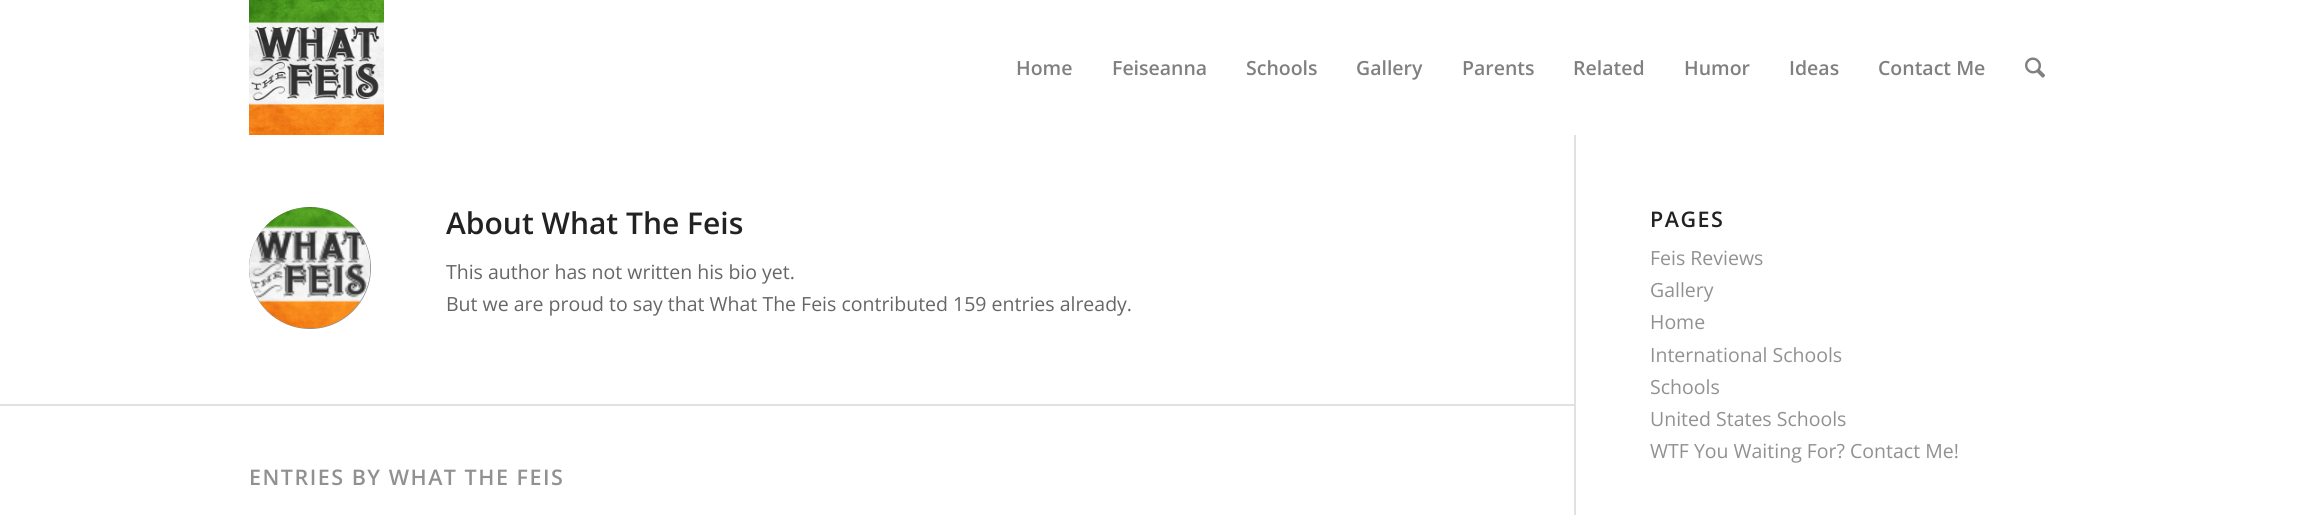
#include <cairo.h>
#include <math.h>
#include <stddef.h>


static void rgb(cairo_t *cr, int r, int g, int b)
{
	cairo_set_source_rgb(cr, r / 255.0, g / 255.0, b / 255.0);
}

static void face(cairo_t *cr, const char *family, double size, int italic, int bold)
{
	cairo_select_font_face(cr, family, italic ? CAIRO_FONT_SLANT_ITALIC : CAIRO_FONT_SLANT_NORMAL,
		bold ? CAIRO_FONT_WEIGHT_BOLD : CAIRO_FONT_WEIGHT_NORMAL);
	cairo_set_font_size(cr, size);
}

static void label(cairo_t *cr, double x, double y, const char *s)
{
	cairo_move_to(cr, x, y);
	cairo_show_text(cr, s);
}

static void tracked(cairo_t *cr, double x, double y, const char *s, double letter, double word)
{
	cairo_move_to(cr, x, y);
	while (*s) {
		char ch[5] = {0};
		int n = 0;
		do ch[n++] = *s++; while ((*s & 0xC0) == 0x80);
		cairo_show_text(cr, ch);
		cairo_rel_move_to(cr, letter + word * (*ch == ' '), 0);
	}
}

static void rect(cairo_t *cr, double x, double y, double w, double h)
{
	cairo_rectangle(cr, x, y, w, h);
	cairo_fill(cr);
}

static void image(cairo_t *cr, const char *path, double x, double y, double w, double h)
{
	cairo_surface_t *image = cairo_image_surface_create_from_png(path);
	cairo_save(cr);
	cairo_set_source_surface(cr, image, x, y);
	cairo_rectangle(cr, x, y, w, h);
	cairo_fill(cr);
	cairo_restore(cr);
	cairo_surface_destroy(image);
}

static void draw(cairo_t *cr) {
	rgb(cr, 255, 255, 255);
	cairo_paint(cr);
	image(cr, "image0.png", 249, 0, 135, 135);
	face(cr, "Open Sans SemiBold", 19.5, 0, 0);
	rgb(cr, 128, 128, 128);
	label(cr, 1016, 75, "Home");
	label(cr, 1112, 75, "Feiseanna");
	label(cr, 1246, 75, "Schools");
	label(cr, 1356, 75, "Gallery");
	label(cr, 1462, 75, "Parents");
	label(cr, 1573, 75, "Related");
	label(cr, 1684, 75, "Humor");
	label(cr, 1789, 75, "Ideas");
	label(cr, 1878, 75, "Contact Me");
	image(cr, "image1.png", 2025, 57, 21, 21);
	rgb(cr, 225, 225, 225);
	rect(cr, 1574, 132, 2, 383);
	rgb(cr, 255, 255, 255);
	rect(cr, 1574, 132, 2, 3);
	rgb(cr, 145, 145, 145);
	cairo_arc(cr, 310, 268, 61, 0, 2 * M_PI);
	cairo_fill(cr);
	image(cr, "image2.png", 249, 207, 122, 122);
	face(cr, "Open Sans SemiBold", 30, 0, 0);
	rgb(cr, 34, 34, 34);
	label(cr, 446, 234, "About What The Feis");
	face(cr, "Open Sans", 19.5, 0, 0);
	rgb(cr, 102, 102, 102);
	label(cr, 446, 279, "This author has not written his bio yet.");
	label(cr, 446, 311, "But we are proud to say that What The Feis contributed 159 entries already.");
	rgb(cr, 225, 225, 225);
	rect(cr, 0, 404, 1574, 2);
	face(cr, "Open Sans SemiBold", 21.5, 0, 0);
	rgb(cr, 145, 145, 145);
	tracked(cr, 249, 485, "ENTRIES BY WHAT THE FEIS", 1.5, 0);
	rgb(cr, 34, 34, 34);
	tracked(cr, 1650, 227, "PAGES", 1.5, 0);
	face(cr, "Open Sans", 19.5, 0, 0);
	rgb(cr, 145, 145, 145);
	label(cr, 1650, 265, "Feis Reviews");
	label(cr, 1650, 297, "Gallery");
	label(cr, 1650, 329, "Home");
	label(cr, 1650, 362, "International Schools");
	label(cr, 1650, 394, "Schools");
	label(cr, 1650, 426, "United States Schools");
	label(cr, 1650, 458, "WTF You Waiting For? Contact Me!");
}

int main(void) {
	cairo_surface_t *surface = cairo_image_surface_create(CAIRO_FORMAT_RGB24, 2312, 515);
	cairo_t *cr = cairo_create(surface);
	cairo_font_options_t *options = cairo_font_options_create();
	cairo_font_options_set_hint_metrics(options, CAIRO_HINT_METRICS_OFF);
	cairo_font_options_set_hint_style(options, CAIRO_HINT_STYLE_NONE);
	cairo_set_font_options(cr, options);
	cairo_set_miter_limit(cr, 4);
	draw(cr);
	cairo_surface_write_to_png(surface, "render.png");
	cairo_font_options_destroy(options);
	cairo_destroy(cr);
	cairo_surface_destroy(surface);
	return 0;
}
